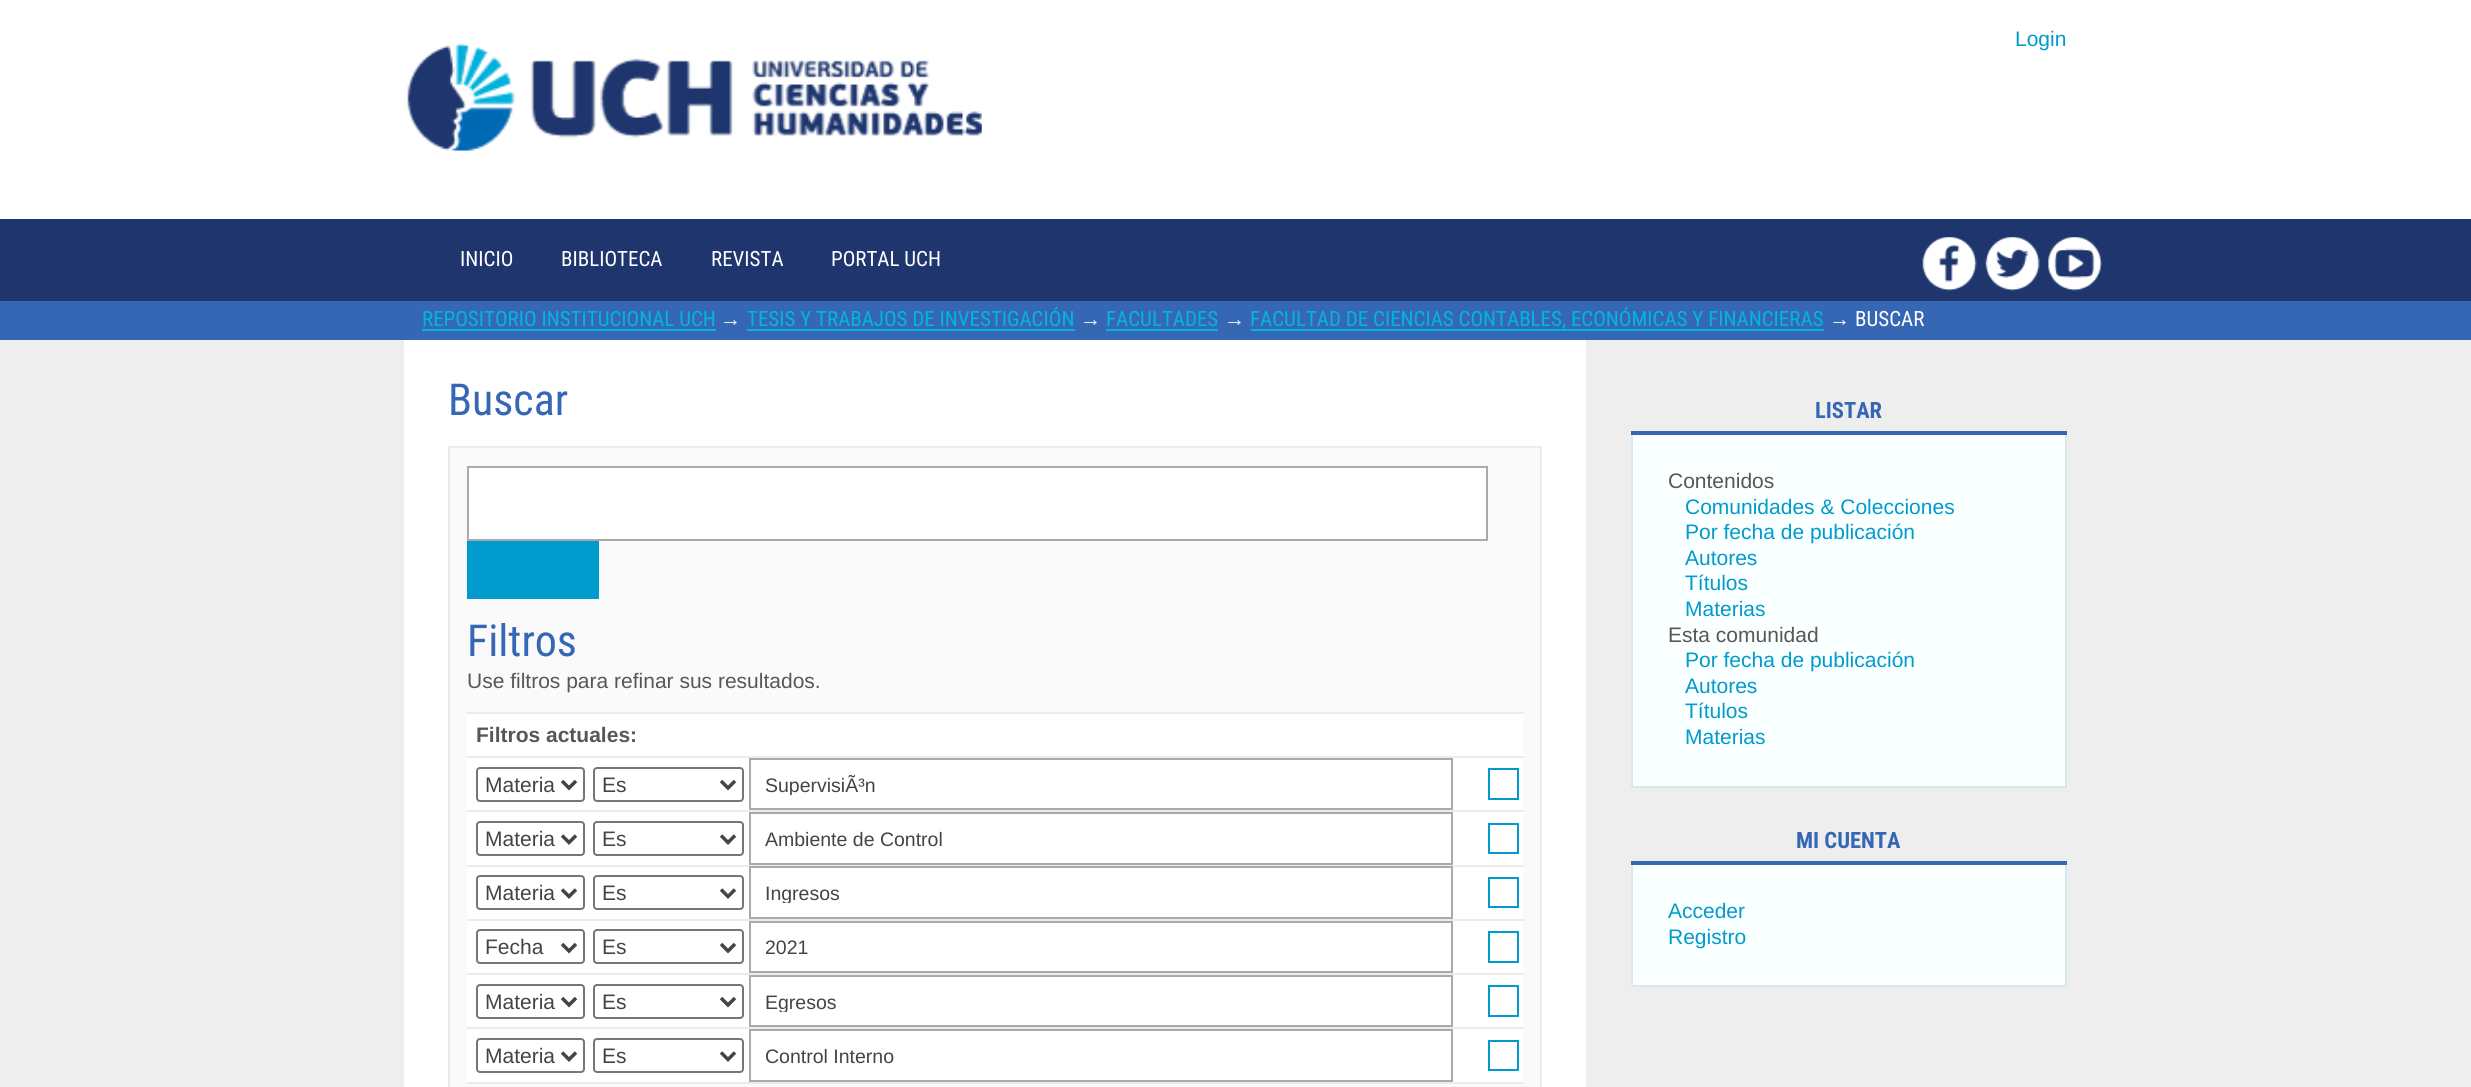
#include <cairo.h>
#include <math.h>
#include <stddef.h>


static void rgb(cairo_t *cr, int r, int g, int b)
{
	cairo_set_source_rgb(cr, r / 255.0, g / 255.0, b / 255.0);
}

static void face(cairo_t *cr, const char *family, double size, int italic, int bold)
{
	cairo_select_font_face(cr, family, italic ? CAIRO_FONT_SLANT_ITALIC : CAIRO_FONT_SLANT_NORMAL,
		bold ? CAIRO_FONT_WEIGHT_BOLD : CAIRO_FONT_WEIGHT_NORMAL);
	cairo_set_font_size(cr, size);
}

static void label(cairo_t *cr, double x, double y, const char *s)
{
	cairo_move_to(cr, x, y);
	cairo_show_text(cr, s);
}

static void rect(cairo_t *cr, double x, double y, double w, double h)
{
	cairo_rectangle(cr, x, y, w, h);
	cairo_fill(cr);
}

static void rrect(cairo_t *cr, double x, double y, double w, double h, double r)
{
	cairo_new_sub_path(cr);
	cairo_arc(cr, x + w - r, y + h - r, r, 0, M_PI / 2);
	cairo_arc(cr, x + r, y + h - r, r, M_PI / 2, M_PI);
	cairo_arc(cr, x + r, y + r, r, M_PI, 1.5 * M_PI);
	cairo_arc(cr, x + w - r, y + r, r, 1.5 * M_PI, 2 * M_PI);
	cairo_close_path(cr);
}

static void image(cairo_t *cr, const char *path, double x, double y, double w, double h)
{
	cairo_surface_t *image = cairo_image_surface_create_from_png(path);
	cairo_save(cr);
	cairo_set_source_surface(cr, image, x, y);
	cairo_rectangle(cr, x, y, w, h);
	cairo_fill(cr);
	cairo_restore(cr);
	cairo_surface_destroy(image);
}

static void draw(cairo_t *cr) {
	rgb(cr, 30, 54, 109);
	cairo_paint(cr);
	rgb(cr, 255, 255, 255);
	rect(cr, 0, 0, 2471, 219);
	face(cr, "Liberation Sans", 21, 0, 0);
	rgb(cr, 0, 154, 205);
	label(cr, 2015, 46, "Login");
	image(cr, "image0.png", 407, 43, 575, 108);
	face(cr, "Roboto Condensed", 21, 0, 0);
	rgb(cr, 255, 255, 255);
	label(cr, 460, 266, "INICIO");
	label(cr, 561, 266, "BIBLIOTECA");
	label(cr, 711, 266, "REVISTA");
	label(cr, 831, 266, "PORTAL UCH");
	image(cr, "image1.png", 1922, 237, 55, 54);
	image(cr, "image2.png", 1985, 237, 55, 54);
	image(cr, "image3.png", 2048, 237, 54, 54);
	rgb(cr, 54, 103, 181);
	rect(cr, 0, 301, 2471, 39);
	rgb(cr, 0, 181, 226);
	label(cr, 422, 326, "REPOSITORIO INSTITUCIONAL UCH");
	rect(cr, 422, 329, 294, 2);
	face(cr, "Liberation Sans", 21, 0, 0);
	rgb(cr, 255, 255, 255);
	label(cr, 720, 326, "→");
	face(cr, "Roboto Condensed", 21, 0, 0);
	rgb(cr, 0, 181, 226);
	label(cr, 747, 326, "TESIS Y TRABAJOS DE INVESTIGACIÓN");
	rect(cr, 747, 329, 328, 2);
	face(cr, "Liberation Sans", 21, 0, 0);
	rgb(cr, 255, 255, 255);
	label(cr, 1080, 326, "→");
	face(cr, "Roboto Condensed", 21, 0, 0);
	rgb(cr, 0, 181, 226);
	label(cr, 1106, 326, "FACULTADES");
	rect(cr, 1106, 329, 112, 2);
	face(cr, "Liberation Sans", 21, 0, 0);
	rgb(cr, 255, 255, 255);
	label(cr, 1224, 326, "→");
	face(cr, "Roboto Condensed", 21, 0, 0);
	rgb(cr, 0, 181, 226);
	label(cr, 1250, 326, "FACULTAD DE CIENCIAS CONTABLES, ECONÓMICAS Y FINANCIERAS");
	rect(cr, 1251, 329, 573, 2);
	face(cr, "Liberation Sans", 21, 0, 0);
	rgb(cr, 255, 255, 255);
	label(cr, 1829, 326, "→");
	face(cr, "Roboto Condensed", 21, 0, 0);
	label(cr, 1855, 326, "BUSCAR");
	rgb(cr, 238, 238, 238);
	rect(cr, 0, 340, 2471, 747);
	rgb(cr, 255, 255, 255);
	rect(cr, 404, 340, 1182, 747);
	face(cr, "Roboto Condensed", 44, 0, 0);
	rgb(cr, 54, 103, 181);
	label(cr, 448, 415, "Buscar");
	rgb(cr, 250, 250, 250);
	cairo_rectangle(cr, 449, 447, 1092, 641);
	cairo_fill_preserve(cr);
	rgb(cr, 235, 235, 235);
	cairo_stroke(cr);
	rgb(cr, 255, 255, 255);
	cairo_rectangle(cr, 468, 467, 1019, 73);
	cairo_fill_preserve(cr);
	rgb(cr, 170, 170, 170);
	cairo_stroke(cr);
	rgb(cr, 0, 154, 205);
	rect(cr, 467, 541, 132, 58);
	rgb(cr, 54, 103, 181);
	label(cr, 467, 656, "Filtros");
	face(cr, "Liberation Sans", 21, 0, 0);
	rgb(cr, 87, 87, 86);
	label(cr, 467, 688, "Use filtros para refinar sus resultados.");
	rgb(cr, 255, 255, 255);
	rect(cr, 467, 714, 1056, 368);
	rgb(cr, 235, 235, 235);
	rect(cr, 467, 712, 1057, 2);
	face(cr, "Liberation Sans", 21, 0, 1);
	rgb(cr, 87, 87, 86);
	label(cr, 476, 742, "Filtros actuales:");
	rgb(cr, 235, 235, 235);
	rect(cr, 467, 756, 1057, 2);
	rrect(cr, 477, 768, 107, 33, 3);
	rgb(cr, 118, 118, 118);
	cairo_stroke(cr);
	cairo_new_path(cr);
	cairo_move_to(cr, 562, 781);
	cairo_line_to(cr, 569, 788);
	cairo_line_to(cr, 576, 781);
	rgb(cr, 68, 68, 68);
	cairo_set_line_width(cr, 3.5);
	cairo_stroke(cr);
	face(cr, "Liberation Sans", 21, 0, 0);
	label(cr, 485, 792, "Materia");
	rrect(cr, 594, 768, 149, 33, 3);
	rgb(cr, 118, 118, 118);
	cairo_set_line_width(cr, 2);
	cairo_stroke(cr);
	cairo_new_path(cr);
	cairo_move_to(cr, 721, 781);
	cairo_line_to(cr, 728, 788);
	cairo_line_to(cr, 735, 781);
	rgb(cr, 68, 68, 68);
	cairo_set_line_width(cr, 3.5);
	cairo_stroke(cr);
	label(cr, 602, 792, "Es");
	cairo_rectangle(cr, 750, 759, 702, 50);
	rgb(cr, 170, 170, 170);
	cairo_set_line_width(cr, 2);
	cairo_stroke(cr);
	cairo_save(cr);
	cairo_rectangle(cr, 765, 774, 672, 21);
	cairo_clip(cr);
	face(cr, "Liberation Sans", 19.5, 0, 0);
	rgb(cr, 68, 68, 68);
	label(cr, 765, 792, "SupervisiÃ³n");
	cairo_restore(cr);
	cairo_rectangle(cr, 1489, 769, 29, 30);
	rgb(cr, 0, 154, 205);
	cairo_stroke(cr);
	rgb(cr, 235, 235, 235);
	rect(cr, 467, 810, 1057, 2);
	rrect(cr, 477, 822, 107, 33, 3);
	rgb(cr, 118, 118, 118);
	cairo_stroke(cr);
	cairo_new_path(cr);
	cairo_move_to(cr, 562, 835.5);
	cairo_line_to(cr, 569, 842.5);
	cairo_line_to(cr, 576, 835.5);
	rgb(cr, 68, 68, 68);
	cairo_set_line_width(cr, 3.5);
	cairo_stroke(cr);
	label(cr, 485, 846, "Materia");
	rrect(cr, 594, 822, 149, 33, 3);
	rgb(cr, 118, 118, 118);
	cairo_set_line_width(cr, 2);
	cairo_stroke(cr);
	cairo_new_path(cr);
	cairo_move_to(cr, 721, 835.5);
	cairo_line_to(cr, 728, 842.5);
	cairo_line_to(cr, 735, 835.5);
	rgb(cr, 68, 68, 68);
	cairo_set_line_width(cr, 3.5);
	cairo_stroke(cr);
	label(cr, 602, 846, "Es");
	cairo_rectangle(cr, 750, 813, 702, 51);
	rgb(cr, 170, 170, 170);
	cairo_set_line_width(cr, 2);
	cairo_stroke(cr);
	face(cr, "Liberation Sans", 19.5, 0, 0);
	rgb(cr, 68, 68, 68);
	label(cr, 765, 846, "Ambiente de Control");
	cairo_rectangle(cr, 1489, 824, 29, 29);
	rgb(cr, 0, 154, 205);
	cairo_stroke(cr);
	rgb(cr, 235, 235, 235);
	rect(cr, 467, 865, 1057, 2);
	rrect(cr, 477, 876, 107, 33, 3);
	rgb(cr, 118, 118, 118);
	cairo_stroke(cr);
	cairo_new_path(cr);
	cairo_move_to(cr, 562, 889.5);
	cairo_line_to(cr, 569, 896.5);
	cairo_line_to(cr, 576, 889.5);
	rgb(cr, 68, 68, 68);
	cairo_set_line_width(cr, 3.5);
	cairo_stroke(cr);
	face(cr, "Liberation Sans", 21, 0, 0);
	label(cr, 485, 900, "Materia");
	rrect(cr, 594, 876, 149, 33, 3);
	rgb(cr, 118, 118, 118);
	cairo_set_line_width(cr, 2);
	cairo_stroke(cr);
	cairo_new_path(cr);
	cairo_move_to(cr, 721, 889.5);
	cairo_line_to(cr, 728, 896.5);
	cairo_line_to(cr, 735, 889.5);
	rgb(cr, 68, 68, 68);
	cairo_set_line_width(cr, 3.5);
	cairo_stroke(cr);
	label(cr, 602, 900, "Es");
	cairo_rectangle(cr, 750, 867, 702, 51);
	rgb(cr, 170, 170, 170);
	cairo_set_line_width(cr, 2);
	cairo_stroke(cr);
	cairo_save(cr);
	cairo_rectangle(cr, 765, 882, 672, 21);
	cairo_clip(cr);
	face(cr, "Liberation Sans", 19.5, 0, 0);
	rgb(cr, 68, 68, 68);
	label(cr, 765, 900, "Ingresos");
	cairo_restore(cr);
	cairo_rectangle(cr, 1489, 878, 29, 29);
	rgb(cr, 0, 154, 205);
	cairo_stroke(cr);
	rgb(cr, 235, 235, 235);
	rect(cr, 467, 919, 1057, 2);
	rrect(cr, 477, 930, 107, 33, 3);
	rgb(cr, 118, 118, 118);
	cairo_stroke(cr);
	cairo_new_path(cr);
	cairo_move_to(cr, 562, 944);
	cairo_line_to(cr, 569, 951);
	cairo_line_to(cr, 576, 944);
	rgb(cr, 68, 68, 68);
	cairo_set_line_width(cr, 3.5);
	cairo_stroke(cr);
	label(cr, 485, 954, "Fecha");
	rrect(cr, 594, 930, 149, 33, 3);
	rgb(cr, 118, 118, 118);
	cairo_set_line_width(cr, 2);
	cairo_stroke(cr);
	cairo_new_path(cr);
	cairo_move_to(cr, 721, 944);
	cairo_line_to(cr, 728, 951);
	cairo_line_to(cr, 735, 944);
	rgb(cr, 68, 68, 68);
	cairo_set_line_width(cr, 3.5);
	cairo_stroke(cr);
	label(cr, 602, 954, "Es");
	cairo_rectangle(cr, 750, 922, 702, 50);
	rgb(cr, 170, 170, 170);
	cairo_set_line_width(cr, 2);
	cairo_stroke(cr);
	face(cr, "Liberation Sans", 19.5, 0, 0);
	rgb(cr, 68, 68, 68);
	label(cr, 765, 954, "2021");
	cairo_rectangle(cr, 1489, 932, 29, 30);
	rgb(cr, 0, 154, 205);
	cairo_stroke(cr);
	rgb(cr, 235, 235, 235);
	rect(cr, 467, 973, 1057, 2);
	rrect(cr, 477, 985, 107, 33, 3);
	rgb(cr, 118, 118, 118);
	cairo_stroke(cr);
	cairo_new_path(cr);
	cairo_move_to(cr, 562, 998);
	cairo_line_to(cr, 569, 1005);
	cairo_line_to(cr, 576, 998);
	rgb(cr, 68, 68, 68);
	cairo_set_line_width(cr, 3.5);
	cairo_stroke(cr);
	face(cr, "Liberation Sans", 21, 0, 0);
	label(cr, 485, 1009, "Materia");
	rrect(cr, 594, 985, 149, 33, 3);
	rgb(cr, 118, 118, 118);
	cairo_set_line_width(cr, 2);
	cairo_stroke(cr);
	cairo_new_path(cr);
	cairo_move_to(cr, 721, 998);
	cairo_line_to(cr, 728, 1005);
	cairo_line_to(cr, 735, 998);
	rgb(cr, 68, 68, 68);
	cairo_set_line_width(cr, 3.5);
	cairo_stroke(cr);
	label(cr, 602, 1009, "Es");
	cairo_rectangle(cr, 750, 976, 702, 50);
	rgb(cr, 170, 170, 170);
	cairo_set_line_width(cr, 2);
	cairo_stroke(cr);
	cairo_save(cr);
	cairo_rectangle(cr, 765, 991, 672, 21);
	cairo_clip(cr);
	face(cr, "Liberation Sans", 19.5, 0, 0);
	rgb(cr, 68, 68, 68);
	label(cr, 765, 1009, "Egresos");
	cairo_restore(cr);
	cairo_rectangle(cr, 1489, 986, 29, 30);
	rgb(cr, 0, 154, 205);
	cairo_stroke(cr);
	rgb(cr, 235, 235, 235);
	rect(cr, 467, 1027, 1057, 2);
	rrect(cr, 477, 1039, 107, 33, 3);
	rgb(cr, 118, 118, 118);
	cairo_stroke(cr);
	cairo_new_path(cr);
	cairo_move_to(cr, 562, 1052.5);
	cairo_line_to(cr, 569, 1059.5);
	cairo_line_to(cr, 576, 1052.5);
	rgb(cr, 68, 68, 68);
	cairo_set_line_width(cr, 3.5);
	cairo_stroke(cr);
	label(cr, 485, 1063, "Materia");
	rrect(cr, 594, 1039, 149, 33, 3);
	rgb(cr, 118, 118, 118);
	cairo_set_line_width(cr, 2);
	cairo_stroke(cr);
	cairo_new_path(cr);
	cairo_move_to(cr, 721, 1052.5);
	cairo_line_to(cr, 728, 1059.5);
	cairo_line_to(cr, 735, 1052.5);
	rgb(cr, 68, 68, 68);
	cairo_set_line_width(cr, 3.5);
	cairo_stroke(cr);
	label(cr, 602, 1063, "Es");
	cairo_rectangle(cr, 750, 1030, 702, 51);
	rgb(cr, 170, 170, 170);
	cairo_set_line_width(cr, 2);
	cairo_stroke(cr);
	face(cr, "Liberation Sans", 19.5, 0, 0);
	rgb(cr, 68, 68, 68);
	label(cr, 765, 1063, "Control Interno");
	cairo_rectangle(cr, 1489, 1041, 29, 29);
	rgb(cr, 0, 154, 205);
	cairo_stroke(cr);
	rgb(cr, 235, 235, 235);
	rect(cr, 467, 1082, 1057, 2);
	rgb(cr, 216, 232, 235);
	rect(cr, 2065, 434, 2, 354);
	rect(cr, 1631, 786, 436, 2);
	rect(cr, 1631, 434, 2, 354);
	rgb(cr, 54, 103, 181);
	rect(cr, 1631, 431, 436, 4);
	face(cr, "Roboto Condensed", 22.5, 0, 1);
	label(cr, 1815, 418, "LISTAR");
	rgb(cr, 250, 255, 255);
	rect(cr, 1633, 435, 432, 351);
	face(cr, "Liberation Sans", 21, 0, 0);
	rgb(cr, 87, 87, 86);
	label(cr, 1668, 488, "Contenidos");
	rgb(cr, 0, 154, 205);
	label(cr, 1685, 514, "Comunidades & Colecciones");
	label(cr, 1685, 539, "Por fecha de publicación");
	label(cr, 1685, 565, "Autores");
	label(cr, 1685, 590, "Títulos");
	label(cr, 1685, 616, "Materias");
	rgb(cr, 87, 87, 86);
	label(cr, 1668, 642, "Esta comunidad");
	rgb(cr, 0, 154, 205);
	label(cr, 1685, 667, "Por fecha de publicación");
	label(cr, 1685, 693, "Autores");
	label(cr, 1685, 718, "Títulos");
	label(cr, 1685, 744, "Materias");
	rgb(cr, 54, 103, 181);
	rect(cr, 1631, 861, 436, 4);
	face(cr, "Roboto Condensed", 22.5, 0, 1);
	label(cr, 1796, 848, "MI CUENTA");
	rgb(cr, 250, 255, 255);
	rect(cr, 1633, 865, 432, 120);
	rgb(cr, 216, 232, 235);
	rect(cr, 2065, 865, 2, 122);
	rect(cr, 1631, 985, 436, 2);
	rect(cr, 1631, 865, 2, 122);
	face(cr, "Liberation Sans", 21, 0, 0);
	rgb(cr, 0, 154, 205);
	label(cr, 1668, 918, "Acceder");
	label(cr, 1668, 944, "Registro");
}

int main(void) {
	cairo_surface_t *surface = cairo_image_surface_create(CAIRO_FORMAT_RGB24, 2471, 1087);
	cairo_t *cr = cairo_create(surface);
	cairo_font_options_t *options = cairo_font_options_create();
	cairo_font_options_set_hint_metrics(options, CAIRO_HINT_METRICS_OFF);
	cairo_font_options_set_hint_style(options, CAIRO_HINT_STYLE_NONE);
	cairo_set_font_options(cr, options);
	cairo_set_miter_limit(cr, 4);
	draw(cr);
	cairo_surface_write_to_png(surface, "render.png");
	cairo_font_options_destroy(options);
	cairo_destroy(cr);
	cairo_surface_destroy(surface);
	return 0;
}
